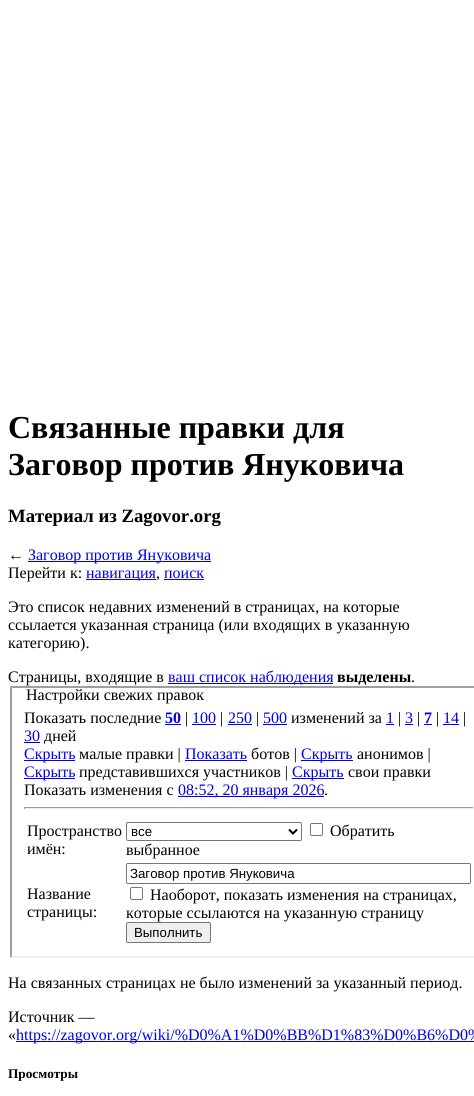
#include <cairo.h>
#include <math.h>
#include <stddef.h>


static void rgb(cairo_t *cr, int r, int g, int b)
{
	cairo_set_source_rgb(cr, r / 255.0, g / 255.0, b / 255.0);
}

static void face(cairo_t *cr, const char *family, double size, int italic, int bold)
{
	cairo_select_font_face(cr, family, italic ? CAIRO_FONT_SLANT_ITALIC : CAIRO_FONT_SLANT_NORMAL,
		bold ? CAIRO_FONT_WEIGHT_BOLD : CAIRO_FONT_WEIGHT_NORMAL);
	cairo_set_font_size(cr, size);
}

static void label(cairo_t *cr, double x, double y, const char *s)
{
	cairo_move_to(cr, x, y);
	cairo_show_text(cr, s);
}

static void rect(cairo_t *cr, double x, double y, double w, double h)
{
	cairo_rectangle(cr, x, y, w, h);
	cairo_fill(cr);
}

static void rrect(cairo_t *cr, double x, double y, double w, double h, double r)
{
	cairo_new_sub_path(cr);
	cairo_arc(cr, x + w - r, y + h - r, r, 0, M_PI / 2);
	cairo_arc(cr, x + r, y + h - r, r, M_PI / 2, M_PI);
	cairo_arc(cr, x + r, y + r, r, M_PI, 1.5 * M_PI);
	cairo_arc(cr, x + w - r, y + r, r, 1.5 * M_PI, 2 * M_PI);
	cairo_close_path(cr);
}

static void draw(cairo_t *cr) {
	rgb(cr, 255, 255, 255);
	cairo_paint(cr);
	face(cr, "Liberation Serif", 32, 0, 1);
	rgb(cr, 0, 0, 0);
	label(cr, 8, 438, "Связанные правки для");
	label(cr, 8, 475, "Заговор против Януковича");
	face(cr, "Liberation Serif", 18.75, 0, 1);
	label(cr, 8, 522, "Материал из Zagovor.org");
	face(cr, "Liberation Serif", 16, 0, 0);
	label(cr, 8, 560, "←");
	rgb(cr, 0, 0, 238);
	rect(cr, 28, 561, 183, 1);
	label(cr, 28, 560, "Заговор против Януковича");
	rgb(cr, 0, 0, 0);
	label(cr, 8, 578, "Перейти к:");
	rgb(cr, 0, 0, 238);
	rect(cr, 86, 579, 70, 1);
	label(cr, 86, 578, "навигация");
	rgb(cr, 0, 0, 0);
	label(cr, 156, 578, ",");
	rgb(cr, 0, 0, 238);
	label(cr, 164, 578, "поиск");
	rect(cr, 164, 579, 40, 1);
	rgb(cr, 0, 0, 0);
	label(cr, 8, 612, "Это список недавних изменений в страницах, на которые");
	label(cr, 8, 630, "ссылается указанная страница (или входящих в указанную");
	label(cr, 8, 648, "категорию).");
	label(cr, 8, 682, "Страницы, входящие в");
	rgb(cr, 0, 0, 238);
	rect(cr, 168, 683, 165, 1);
	label(cr, 168, 682, "ваш список наблюдения");
	face(cr, "Liberation Serif", 16, 0, 1);
	rgb(cr, 0, 0, 0);
	label(cr, 337, 682, "выделены");
	face(cr, "Liberation Serif", 16, 0, 0);
	label(cr, 411, 682, ".");
	rgb(cr, 159, 159, 159);
	cairo_new_path(cr);
	cairo_move_to(cr, 10, 686);
	cairo_line_to(cr, 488, 686);
	cairo_line_to(cr, 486, 688);
	cairo_line_to(cr, 12, 688);
	cairo_close_path(cr);
	cairo_fill(cr);
	rgb(cr, 239, 239, 239);
	cairo_new_path(cr);
	cairo_move_to(cr, 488, 958);
	cairo_line_to(cr, 10, 958);
	cairo_line_to(cr, 12, 956);
	cairo_line_to(cr, 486, 956);
	cairo_close_path(cr);
	cairo_fill(cr);
	rgb(cr, 159, 159, 159);
	cairo_new_path(cr);
	cairo_move_to(cr, 10, 958);
	cairo_line_to(cr, 10, 686);
	cairo_line_to(cr, 12, 688);
	cairo_line_to(cr, 12, 956);
	cairo_close_path(cr);
	cairo_fill(cr);
	rgb(cr, 0, 0, 0);
	label(cr, 26, 700, "Настройки свежих правок");
	label(cr, 24, 723, "Показать последние");
	face(cr, "Liberation Serif", 16, 0, 1);
	rgb(cr, 0, 0, 238);
	label(cr, 165, 723, "50");
	rect(cr, 165, 724, 16, 1);
	face(cr, "Liberation Serif", 16, 0, 0);
	rgb(cr, 0, 0, 0);
	label(cr, 185, 723, "|");
	rgb(cr, 0, 0, 238);
	label(cr, 192, 723, "100");
	rect(cr, 192, 724, 24, 1);
	rgb(cr, 0, 0, 0);
	label(cr, 220, 723, "|");
	rgb(cr, 0, 0, 238);
	label(cr, 228, 723, "250");
	rect(cr, 228, 724, 24, 1);
	rgb(cr, 0, 0, 0);
	label(cr, 256, 723, "|");
	rgb(cr, 0, 0, 238);
	label(cr, 263, 723, "500");
	rect(cr, 263, 724, 24, 1);
	rgb(cr, 0, 0, 0);
	label(cr, 291, 723, "изменений за");
	rgb(cr, 0, 0, 238);
	label(cr, 386, 723, "1");
	rect(cr, 386, 724, 8, 1);
	rgb(cr, 0, 0, 0);
	label(cr, 398, 723, "|");
	rgb(cr, 0, 0, 238);
	label(cr, 405, 723, "3");
	rect(cr, 405, 724, 8, 1);
	rgb(cr, 0, 0, 0);
	label(cr, 417, 723, "|");
	face(cr, "Liberation Serif", 16, 0, 1);
	rgb(cr, 0, 0, 238);
	label(cr, 424, 723, "7");
	rect(cr, 424, 724, 8, 1);
	face(cr, "Liberation Serif", 16, 0, 0);
	rgb(cr, 0, 0, 0);
	label(cr, 436, 723, "|");
	rgb(cr, 0, 0, 238);
	label(cr, 443, 723, "14");
	rect(cr, 443, 724, 16, 1);
	rgb(cr, 0, 0, 0);
	label(cr, 463, 723, "|");
	rgb(cr, 0, 0, 238);
	label(cr, 24, 741, "30");
	rect(cr, 24, 742, 16, 1);
	rgb(cr, 0, 0, 0);
	label(cr, 44, 741, "дней");
	rgb(cr, 0, 0, 238);
	rect(cr, 24, 760, 51, 1);
	label(cr, 24, 759, "Скрыть");
	rgb(cr, 0, 0, 0);
	label(cr, 79, 759, "малые правки |");
	rgb(cr, 0, 0, 238);
	label(cr, 185, 759, "Показать");
	rect(cr, 185, 760, 62, 1);
	rgb(cr, 0, 0, 0);
	label(cr, 251, 759, "ботов |");
	rgb(cr, 0, 0, 238);
	rect(cr, 301, 760, 52, 1);
	label(cr, 301, 759, "Скрыть");
	rgb(cr, 0, 0, 0);
	label(cr, 357, 759, "анонимов |");
	rgb(cr, 0, 0, 238);
	rect(cr, 24, 778, 51, 1);
	label(cr, 24, 777, "Скрыть");
	rgb(cr, 0, 0, 0);
	label(cr, 79, 777, "представившихся участников |");
	rgb(cr, 0, 0, 238);
	rect(cr, 292, 778, 52, 1);
	label(cr, 292, 777, "Скрыть");
	rgb(cr, 0, 0, 0);
	label(cr, 348, 777, "свои правки");
	label(cr, 24, 795, "Показать изменения с");
	rgb(cr, 0, 0, 238);
	rect(cr, 178, 796, 146, 1);
	label(cr, 178, 795, "08:52, 20 января 2026");
	rgb(cr, 0, 0, 0);
	label(cr, 324, 795, ".");
	rgb(cr, 159, 159, 159);
	rect(cr, 24, 807, 450, 1);
	rgb(cr, 238, 238, 238);
	rect(cr, 473, 807, 1, 2);
	rect(cr, 24, 808, 450, 1);
	rgb(cr, 159, 159, 159);
	rect(cr, 24, 807, 1, 2);
	rgb(cr, 0, 0, 0);
	label(cr, 27, 836, "Пространство");
	label(cr, 27, 854, "имён:");
	rrect(cr, 126.5, 822.5, 175, 18, 1.5);
	rgb(cr, 118, 118, 118);
	cairo_set_line_width(cr, 1);
	cairo_stroke(cr);
	cairo_new_path(cr);
	cairo_move_to(cr, 289, 829.5);
	cairo_line_to(cr, 293, 833.5);
	cairo_line_to(cr, 297, 829.5);
	rgb(cr, 0, 0, 0);
	cairo_set_line_width(cr, 2);
	cairo_stroke(cr);
	face(cr, "Liberation Sans", 13.25, 0, 0);
	label(cr, 131, 836, "все");
	rrect(cr, 310.5, 823.5, 12, 12, 1.5);
	rgb(cr, 118, 118, 118);
	cairo_set_line_width(cr, 1);
	cairo_stroke(cr);
	face(cr, "Liberation Serif", 16, 0, 0);
	rgb(cr, 0, 0, 0);
	label(cr, 330, 836, "Обратить");
	label(cr, 126, 855, "выбранное");
	label(cr, 27, 899, "Название");
	label(cr, 27, 917, "страницы:");
	rrect(cr, 126.5, 863.5, 344, 20, 1.5);
	rgb(cr, 118, 118, 118);
	cairo_stroke(cr);
	face(cr, "Liberation Sans", 13.25, 0, 0);
	rgb(cr, 0, 0, 0);
	label(cr, 130, 878, "Заговор против Януковича");
	rrect(cr, 130.5, 887.5, 12, 12, 1.5);
	rgb(cr, 118, 118, 118);
	cairo_stroke(cr);
	face(cr, "Liberation Serif", 16, 0, 0);
	rgb(cr, 0, 0, 0);
	label(cr, 150, 900, "Наоборот, показать изменения на страницах,");
	label(cr, 126, 918, "которые ссылаются на указанную страницу");
	rgb(cr, 239, 239, 239);
	rrect(cr, 126.5, 922.5, 84, 20, 1.5);
	cairo_fill_preserve(cr);
	rgb(cr, 118, 118, 118);
	cairo_stroke(cr);
	face(cr, "Liberation Sans", 13.25, 0, 0);
	rgb(cr, 0, 0, 0);
	label(cr, 134, 937, "Выполнить");
	face(cr, "Liberation Serif", 16, 0, 0);
	label(cr, 8, 988, "На связанных страницах не было изменений за указанный период.");
	label(cr, 8, 1022, "Источник —");
	label(cr, 8, 1040, "«");
	rgb(cr, 0, 0, 238);
	rect(cr, 16, 1041, 458, 1);
	label(cr, 16, 1040, "https://zagovor.org/wiki/%D0%A1%D0%BB%D1%83%D0%B6%D0%");
	face(cr, "Liberation Serif", 13.25, 0, 1);
	rgb(cr, 0, 0, 0);
	label(cr, 8, 1078, "Просмотры");
}

int main(void) {
	cairo_surface_t *surface = cairo_image_surface_create(CAIRO_FORMAT_RGB24, 474, 1096);
	cairo_t *cr = cairo_create(surface);
	cairo_font_options_t *options = cairo_font_options_create();
	cairo_font_options_set_hint_metrics(options, CAIRO_HINT_METRICS_OFF);
	cairo_font_options_set_hint_style(options, CAIRO_HINT_STYLE_NONE);
	cairo_set_font_options(cr, options);
	cairo_set_miter_limit(cr, 4);
	draw(cr);
	cairo_surface_write_to_png(surface, "render.png");
	cairo_font_options_destroy(options);
	cairo_destroy(cr);
	cairo_surface_destroy(surface);
	return 0;
}
